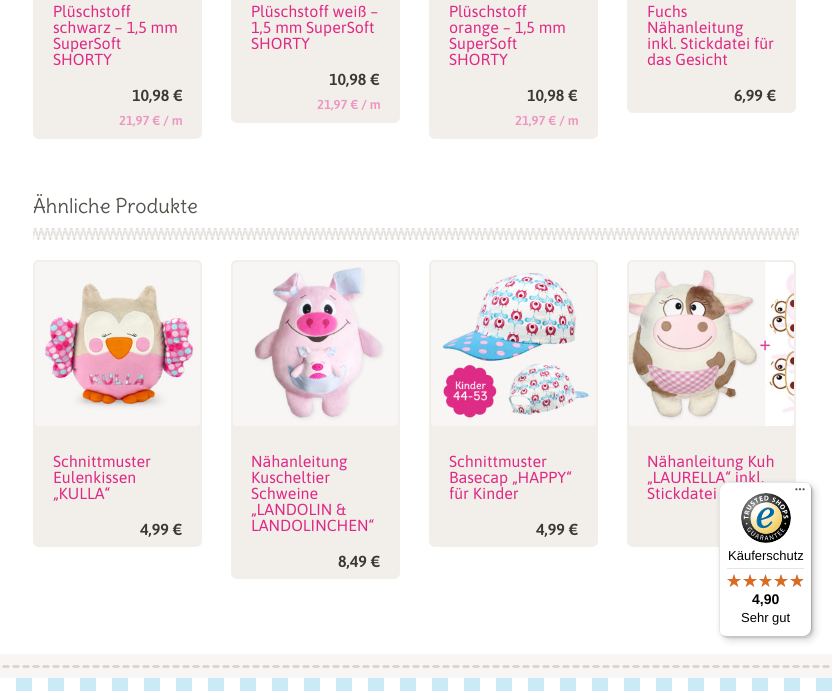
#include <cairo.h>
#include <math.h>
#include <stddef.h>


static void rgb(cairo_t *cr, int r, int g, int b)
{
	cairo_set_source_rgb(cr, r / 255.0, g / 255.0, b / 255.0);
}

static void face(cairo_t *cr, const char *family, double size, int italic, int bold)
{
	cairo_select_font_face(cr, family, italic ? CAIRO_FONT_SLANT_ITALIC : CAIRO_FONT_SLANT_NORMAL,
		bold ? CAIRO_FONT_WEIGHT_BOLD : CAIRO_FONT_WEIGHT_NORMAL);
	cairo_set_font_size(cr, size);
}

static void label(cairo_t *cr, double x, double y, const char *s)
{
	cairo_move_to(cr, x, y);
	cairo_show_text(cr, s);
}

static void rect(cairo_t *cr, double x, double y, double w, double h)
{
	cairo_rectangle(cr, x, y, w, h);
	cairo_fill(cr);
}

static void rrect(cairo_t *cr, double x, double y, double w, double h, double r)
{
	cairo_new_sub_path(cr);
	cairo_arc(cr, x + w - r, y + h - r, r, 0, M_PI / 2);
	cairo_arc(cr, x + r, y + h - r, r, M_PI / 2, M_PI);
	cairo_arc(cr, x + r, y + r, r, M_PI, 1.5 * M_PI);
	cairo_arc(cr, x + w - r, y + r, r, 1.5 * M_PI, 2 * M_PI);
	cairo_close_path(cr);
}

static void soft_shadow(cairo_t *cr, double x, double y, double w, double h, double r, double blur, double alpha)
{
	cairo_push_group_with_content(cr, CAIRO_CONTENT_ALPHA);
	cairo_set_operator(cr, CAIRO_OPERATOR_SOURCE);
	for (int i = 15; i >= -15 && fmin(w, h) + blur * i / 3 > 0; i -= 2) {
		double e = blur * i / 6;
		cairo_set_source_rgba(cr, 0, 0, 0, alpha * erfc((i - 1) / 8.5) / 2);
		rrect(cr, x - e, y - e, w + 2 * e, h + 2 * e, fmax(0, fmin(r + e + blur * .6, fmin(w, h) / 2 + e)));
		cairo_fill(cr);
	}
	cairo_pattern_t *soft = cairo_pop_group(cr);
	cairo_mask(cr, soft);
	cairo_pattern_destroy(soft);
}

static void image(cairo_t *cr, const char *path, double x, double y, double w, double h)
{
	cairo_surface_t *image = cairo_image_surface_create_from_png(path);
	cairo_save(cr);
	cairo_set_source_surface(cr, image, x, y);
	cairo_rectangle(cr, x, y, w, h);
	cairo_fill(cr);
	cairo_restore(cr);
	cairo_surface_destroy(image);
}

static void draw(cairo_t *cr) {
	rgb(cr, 255, 255, 255);
	cairo_paint(cr);
	image(cr, "image0.png", 0, 678, 832, 13);
	image(cr, "image1.png", 0, 654, 832, 24);
	rgb(cr, 242, 238, 234);
	rrect(cr, 33, -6, 169, 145, 6);
	cairo_fill(cr);
	face(cr, "Asap", 16, 0, 0);
	rgb(cr, 222, 42, 133);
	label(cr, 53, 17, "Plüschstoff");
	label(cr, 53, 33, "schwarz – 1,5 mm");
	label(cr, 53, 49, "SuperSoft");
	label(cr, 53, 65, "SHORTY");
	face(cr, "Asap SemiBold", 16, 0, 0);
	rgb(cr, 59, 55, 51);
	label(cr, 132, 101, "10,98 €");
	face(cr, "Asap SemiBold", 13, 0, 0);
	rgb(cr, 238, 149, 194);
	label(cr, 119, 125, "21,97 € / m");
	rgb(cr, 242, 238, 234);
	rrect(cr, 231, -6, 169, 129, 6);
	cairo_fill(cr);
	face(cr, "Asap", 16, 0, 0);
	rgb(cr, 222, 42, 133);
	label(cr, 251, 17, "Plüschstoff weiß –");
	label(cr, 251, 33, "1,5 mm SuperSoft");
	label(cr, 251, 49, "SHORTY");
	face(cr, "Asap SemiBold", 16, 0, 0);
	rgb(cr, 59, 55, 51);
	label(cr, 329, 85, "10,98 €");
	face(cr, "Asap SemiBold", 13, 0, 0);
	rgb(cr, 238, 149, 194);
	label(cr, 317, 109, "21,97 € / m");
	rgb(cr, 242, 238, 234);
	rrect(cr, 429, -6, 169, 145, 6);
	cairo_fill(cr);
	face(cr, "Asap", 16, 0, 0);
	rgb(cr, 222, 42, 133);
	label(cr, 449, 17, "Plüschstoff");
	label(cr, 449, 33, "orange – 1,5 mm");
	label(cr, 449, 49, "SuperSoft");
	label(cr, 449, 65, "SHORTY");
	face(cr, "Asap SemiBold", 16, 0, 0);
	rgb(cr, 59, 55, 51);
	label(cr, 527, 101, "10,98 €");
	face(cr, "Asap SemiBold", 13, 0, 0);
	rgb(cr, 238, 149, 194);
	label(cr, 515, 125, "21,97 € / m");
	rgb(cr, 242, 238, 234);
	rrect(cr, 627, -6, 169, 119, 6);
	cairo_fill(cr);
	face(cr, "Asap", 16, 0, 0);
	rgb(cr, 222, 42, 133);
	label(cr, 647, 17, "Fuchs");
	label(cr, 647, 33, "Nähanleitung");
	label(cr, 647, 49, "inkl. Stickdatei für");
	label(cr, 647, 65, "das Gesicht");
	face(cr, "Asap SemiBold", 16, 0, 0);
	rgb(cr, 59, 55, 51);
	label(cr, 734, 101, "6,99 €");
	image(cr, "image2.png", 33, 228, 766, 12);
	face(cr, "Delius", 20, 0, 0);
	rgb(cr, 86, 81, 76);
	label(cr, 33, 213, "Ähnliche Produkte");
	rgb(cr, 242, 238, 234);
	rrect(cr, 33, 260, 169, 287, 6);
	cairo_fill(cr);
	rrect(cr, 34, 261, 167, 166, 5);
	cairo_stroke(cr);
	image(cr, "image3.png", 35, 262, 165, 164);
	face(cr, "Asap", 16, 0, 0);
	rgb(cr, 222, 42, 133);
	label(cr, 53, 467, "Schnittmuster");
	label(cr, 53, 483, "Eulenkissen");
	label(cr, 53, 499, "„KULLA“");
	face(cr, "Asap SemiBold", 16, 0, 0);
	rgb(cr, 59, 55, 51);
	label(cr, 140, 535, "4,99 €");
	rgb(cr, 242, 238, 234);
	rrect(cr, 231, 260, 169, 319, 6);
	cairo_fill(cr);
	rrect(cr, 232, 261, 167, 166, 5);
	cairo_stroke(cr);
	image(cr, "image4.png", 233, 262, 165, 164);
	face(cr, "Asap", 16, 0, 0);
	rgb(cr, 222, 42, 133);
	label(cr, 251, 467, "Nähanleitung");
	label(cr, 251, 483, "Kuscheltier");
	label(cr, 251, 499, "Schweine");
	label(cr, 251, 515, "„LANDOLIN &");
	label(cr, 251, 531, "LANDOLINCHEN“");
	face(cr, "Asap SemiBold", 16, 0, 0);
	rgb(cr, 59, 55, 51);
	label(cr, 338, 567, "8,49 €");
	rgb(cr, 242, 238, 234);
	rrect(cr, 429, 260, 169, 287, 6);
	cairo_fill(cr);
	rrect(cr, 430, 261, 167, 166, 5);
	cairo_stroke(cr);
	image(cr, "image5.png", 431, 262, 165, 164);
	face(cr, "Asap", 16, 0, 0);
	rgb(cr, 222, 42, 133);
	label(cr, 449, 467, "Schnittmuster");
	label(cr, 449, 483, "Basecap „HAPPY“");
	label(cr, 449, 499, "für Kinder");
	face(cr, "Asap SemiBold", 16, 0, 0);
	rgb(cr, 59, 55, 51);
	label(cr, 536, 535, "4,99 €");
	rgb(cr, 242, 238, 234);
	rrect(cr, 627, 260, 169, 287, 6);
	cairo_fill(cr);
	rrect(cr, 628, 261, 167, 166, 5);
	cairo_stroke(cr);
	image(cr, "image6.png", 629, 262, 165, 164);
	face(cr, "Asap", 16, 0, 0);
	rgb(cr, 222, 42, 133);
	label(cr, 647, 467, "Nähanleitung Kuh");
	label(cr, 647, 483, "„LAURELLA“ inkl.");
	label(cr, 647, 499, "Stickdatei");
	rgb(cr, 0, 0, 0);
	soft_shadow(cr, 722, 485, 93, 155, 8, 4, 0.15);
	soft_shadow(cr, 720, 483, 93, 155, 8, 1, 0.15);
	rgb(cr, 255, 255, 255);
	rrect(cr, 719, 482, 93, 155, 8);
	cairo_fill(cr);
	cairo_set_source_rgba(cr, 0, 0, 0, 0.1);
	cairo_new_path(cr);
	cairo_move_to(cr, 728, 483);
	cairo_line_to(cr, 805, 483);
	cairo_curve_to(cr, 807, 483, 809, 484, 811, 486);
	cairo_curve_to(cr, 809, 484, 807, 482, 804, 482);
	cairo_line_to(cr, 727, 482);
	cairo_curve_to(cr, 723, 482, 719, 486, 719, 490);
	cairo_line_to(cr, 719, 629);
	cairo_curve_to(cr, 719, 632, 721, 634, 723, 636);
	cairo_curve_to(cr, 721, 634, 720, 632, 720, 630);
	cairo_line_to(cr, 720, 491);
	cairo_curve_to(cr, 720, 487, 724, 483, 728, 483);
	cairo_close_path(cr);
	cairo_fill(cr);
	rgb(cr, 204, 204, 204);
	cairo_new_path(cr);
	cairo_move_to(cr, 720, 633);
	cairo_curve_to(cr, 722, 635, 724, 637, 727, 637);
	cairo_line_to(cr, 804, 637);
	cairo_curve_to(cr, 808, 637, 812, 633, 812, 629);
	cairo_line_to(cr, 812, 490);
	cairo_curve_to(cr, 812, 487, 810, 485, 808, 483);
	cairo_curve_to(cr, 810, 485, 811, 487, 811, 489);
	cairo_line_to(cr, 811, 628);
	cairo_curve_to(cr, 811, 632, 807, 636, 803, 636);
	cairo_line_to(cr, 726, 636);
	cairo_curve_to(cr, 724, 636, 722, 635, 720, 633);
	cairo_close_path(cr);
	cairo_fill(cr);
	cairo_set_source_rgba(cr, 0.196, 0.196, 0.196, 0.2);
	cairo_new_path(cr);
	cairo_move_to(cr, 721, 634);
	cairo_curve_to(cr, 722, 636, 725, 637, 727, 637);
	cairo_line_to(cr, 804, 637);
	cairo_curve_to(cr, 808, 637, 812, 633, 812, 629);
	cairo_line_to(cr, 812, 490);
	cairo_curve_to(cr, 812, 488, 811, 485, 809, 484);
	cairo_curve_to(cr, 810, 485, 811, 487, 811, 489);
	cairo_line_to(cr, 811, 628);
	cairo_curve_to(cr, 811, 633, 808, 636, 803, 636);
	cairo_line_to(cr, 726, 636);
	cairo_curve_to(cr, 724, 636, 722, 635, 721, 634);
	cairo_close_path(cr);
	cairo_fill(cr);
	image(cr, "image7.png", 795, 488, 10, 3);
	cairo_set_source_rgba(cr, 1, 1, 1, 0.3);
	cairo_new_path(cr);
	cairo_move_to(cr, 721, 634);
	cairo_curve_to(cr, 722, 636, 725, 637, 727, 637);
	cairo_line_to(cr, 804, 637);
	cairo_curve_to(cr, 808, 637, 812, 633, 812, 629);
	cairo_line_to(cr, 812, 628);
	cairo_curve_to(cr, 812, 633, 808, 636, 804, 636);
	cairo_line_to(cr, 726, 636);
	cairo_curve_to(cr, 724, 636, 722, 635, 721, 634);
	cairo_close_path(cr);
	cairo_fill(cr);
	image(cr, "image8.png", 741, 493, 50, 50);
	face(cr, "Liberation Sans", 13, 0, 0);
	rgb(cr, 0, 0, 0);
	label(cr, 728, 560, "Käuferschutz");
	rgb(cr, 229, 229, 229);
	rect(cr, 727, 568, 77, 1);
	image(cr, "image9.png", 727, 574, 14, 13);
	image(cr, "image9.png", 743, 574, 14, 13);
	image(cr, "image10.png", 759, 574, 13, 13);
	image(cr, "image9.png", 774, 574, 14, 13);
	image(cr, "image9.png", 790, 574, 14, 13);
	image(cr, "image11.png", 727, 574, 14, 13);
	image(cr, "image11.png", 743, 574, 14, 13);
	image(cr, "image12.png", 759, 574, 13, 13);
	image(cr, "image11.png", 774, 574, 14, 13);
	image(cr, "image13.png", 790, 574, 13, 13);
	face(cr, "Liberation Sans", 14, 0, 1);
	rgb(cr, 0, 0, 0);
	label(cr, 752, 604, "4,90");
	face(cr, "Liberation Sans", 13, 0, 0);
	label(cr, 741, 622, "Sehr gut");
}

int main(void) {
	cairo_surface_t *surface = cairo_image_surface_create(CAIRO_FORMAT_RGB24, 832, 691);
	cairo_t *cr = cairo_create(surface);
	cairo_font_options_t *options = cairo_font_options_create();
	cairo_font_options_set_hint_metrics(options, CAIRO_HINT_METRICS_OFF);
	cairo_font_options_set_hint_style(options, CAIRO_HINT_STYLE_NONE);
	cairo_set_font_options(cr, options);
	cairo_set_miter_limit(cr, 4);
	draw(cr);
	cairo_surface_write_to_png(surface, "render.png");
	cairo_font_options_destroy(options);
	cairo_destroy(cr);
	cairo_surface_destroy(surface);
	return 0;
}
